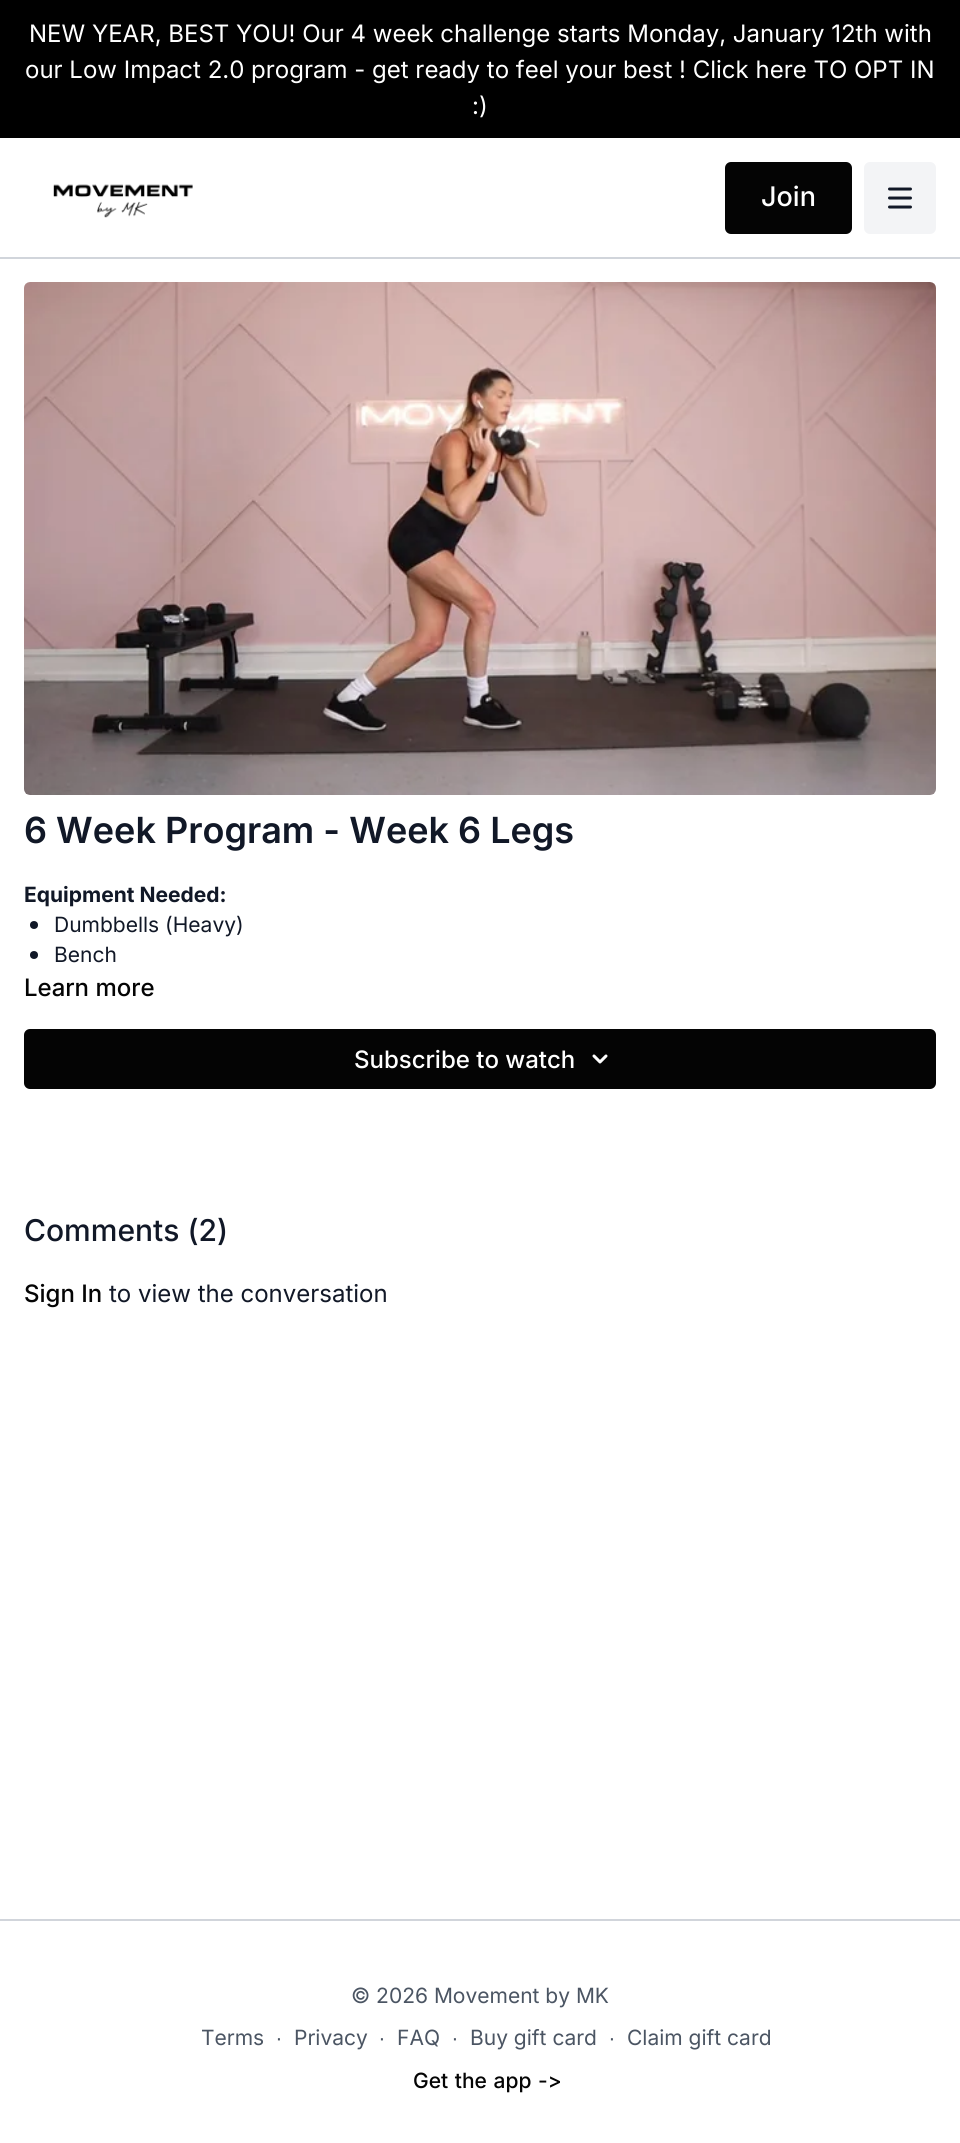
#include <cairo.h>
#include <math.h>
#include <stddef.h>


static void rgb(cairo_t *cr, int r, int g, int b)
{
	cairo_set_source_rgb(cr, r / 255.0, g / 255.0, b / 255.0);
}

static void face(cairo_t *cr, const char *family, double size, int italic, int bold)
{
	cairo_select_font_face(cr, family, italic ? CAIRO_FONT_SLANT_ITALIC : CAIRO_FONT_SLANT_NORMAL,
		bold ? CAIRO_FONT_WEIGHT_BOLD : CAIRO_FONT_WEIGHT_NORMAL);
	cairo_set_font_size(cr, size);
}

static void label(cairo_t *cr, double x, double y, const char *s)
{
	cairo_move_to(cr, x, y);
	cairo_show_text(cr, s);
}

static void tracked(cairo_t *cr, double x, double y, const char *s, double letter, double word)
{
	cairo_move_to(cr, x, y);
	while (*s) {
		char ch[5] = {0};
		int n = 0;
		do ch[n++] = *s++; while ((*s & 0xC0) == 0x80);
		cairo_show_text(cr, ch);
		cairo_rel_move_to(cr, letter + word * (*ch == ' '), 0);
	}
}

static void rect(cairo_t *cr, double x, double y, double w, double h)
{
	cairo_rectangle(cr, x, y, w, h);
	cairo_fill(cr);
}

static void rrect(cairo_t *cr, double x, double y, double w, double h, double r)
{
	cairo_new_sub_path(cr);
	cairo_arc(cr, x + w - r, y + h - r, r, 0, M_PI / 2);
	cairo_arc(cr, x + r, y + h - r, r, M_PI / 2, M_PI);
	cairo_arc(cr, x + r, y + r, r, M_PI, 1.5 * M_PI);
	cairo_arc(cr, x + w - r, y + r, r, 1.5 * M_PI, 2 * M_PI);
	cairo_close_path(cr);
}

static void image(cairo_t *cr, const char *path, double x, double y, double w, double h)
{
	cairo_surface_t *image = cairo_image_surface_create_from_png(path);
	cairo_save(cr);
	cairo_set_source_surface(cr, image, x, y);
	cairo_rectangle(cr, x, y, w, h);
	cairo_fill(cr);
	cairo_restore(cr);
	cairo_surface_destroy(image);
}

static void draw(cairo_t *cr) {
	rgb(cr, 255, 255, 255);
	cairo_paint(cr);
	rgb(cr, 0, 0, 0);
	rect(cr, 0, 0, 960, 138);
	face(cr, "Inter", 24, 0, 0);
	rgb(cr, 255, 255, 255);
	label(cr, 29, 42, "NEW YEAR, BEST YOU! Our 4 week challenge starts Monday, January 12th with");
	label(cr, 25, 78, "our Low Impact 2.0 program - get ready to feel your best ! Click here TO OPT IN");
	label(cr, 472, 114, ":)");
	rgb(cr, 209, 213, 219);
	rect(cr, 0, 257, 960, 2);
	image(cr, "image0.png", 53, 184, 140, 34);
	rgb(cr, 4, 4, 4);
	rrect(cr, 725, 162, 127, 72, 6);
	cairo_fill(cr);
	face(cr, "Inter Medium", 27, 0, 0);
	rgb(cr, 255, 255, 255);
	label(cr, 761, 206, "Join");
	rgb(cr, 243, 244, 246);
	rrect(cr, 864, 162, 72, 72, 6);
	cairo_fill(cr);
	image(cr, "image1.png", 888, 187, 24, 22);
	image(cr, "image2.png", 24, 282, 912, 513);
	face(cr, "Inter SemiBold", 36, 0, 0);
	rgb(cr, 17, 24, 39);
	label(cr, 24, 843, "6 Week Program - Week 6 Legs");
	face(cr, "Inter", 21, 0, 1);
	label(cr, 24, 902, "Equipment Needed:");
	cairo_new_path(cr);
	cairo_arc(cr, 34, 925, 4, 0, 2 * M_PI);
	cairo_fill(cr);
	face(cr, "Inter", 21, 0, 0);
	label(cr, 54, 932, "Dumbbells (Heavy)");
	cairo_new_path(cr);
	cairo_arc(cr, 34, 955, 4, 0, 2 * M_PI);
	cairo_fill(cr);
	label(cr, 54, 962, "Bench");
	face(cr, "Inter Medium", 24, 0, 0);
	rgb(cr, 4, 4, 4);
	label(cr, 24, 996, "Learn more");
	rrect(cr, 24, 1029, 912, 60, 6);
	cairo_fill(cr);
	rgb(cr, 255, 255, 255);
	label(cr, 354, 1068, "Subscribe to watch");
	image(cr, "image3.png", 592, 1054, 16, 10);
	face(cr, "Inter Medium", 30, 0, 0);
	rgb(cr, 17, 24, 39);
	label(cr, 24, 1241, "Comments (2)");
	face(cr, "Inter Medium", 24, 0, 0);
	rgb(cr, 4, 4, 4);
	label(cr, 24, 1302, "Sign In");
	face(cr, "Inter", 24, 0, 0);
	rgb(cr, 17, 24, 39);
	label(cr, 109, 1302, "to view the conversation");
	rgb(cr, 209, 213, 219);
	rect(cr, 0, 1919, 960, 2);
	face(cr, "Inter", 21, 0, 0);
	rgb(cr, 75, 85, 99);
	label(cr, 351, 2003, "© 2026 Movement by MK");
	label(cr, 201, 2045, "Terms");
	face(cr, "Liberation Sans", 21, 0, 0);
	label(cr, 276, 2045, "∙");
	face(cr, "Inter", 21, 0, 0);
	label(cr, 294, 2045, "Privacy");
	face(cr, "Liberation Sans", 21, 0, 0);
	label(cr, 379, 2045, "∙");
	face(cr, "Inter", 21, 0, 0);
	label(cr, 397, 2045, "FAQ");
	face(cr, "Liberation Sans", 21, 0, 0);
	label(cr, 452, 2045, "∙");
	face(cr, "Inter", 21, 0, 0);
	label(cr, 470, 2045, "Buy gift card");
	face(cr, "Liberation Sans", 21, 0, 0);
	label(cr, 609, 2045, "∙");
	face(cr, "Inter", 21, 0, 0);
	label(cr, 627, 2045, "Claim gift card");
	face(cr, "Inter Medium", 21, 0, 0);
	rgb(cr, 4, 4, 4);
	tracked(cr, 413, 2088, "Get the app ->", 0, 1);
}

int main(void) {
	cairo_surface_t *surface = cairo_image_surface_create(CAIRO_FORMAT_RGB24, 960, 2143);
	cairo_t *cr = cairo_create(surface);
	cairo_font_options_t *options = cairo_font_options_create();
	cairo_font_options_set_hint_metrics(options, CAIRO_HINT_METRICS_OFF);
	cairo_font_options_set_hint_style(options, CAIRO_HINT_STYLE_NONE);
	cairo_set_font_options(cr, options);
	cairo_set_miter_limit(cr, 4);
	draw(cr);
	cairo_surface_write_to_png(surface, "render.png");
	cairo_font_options_destroy(options);
	cairo_destroy(cr);
	cairo_surface_destroy(surface);
	return 0;
}
